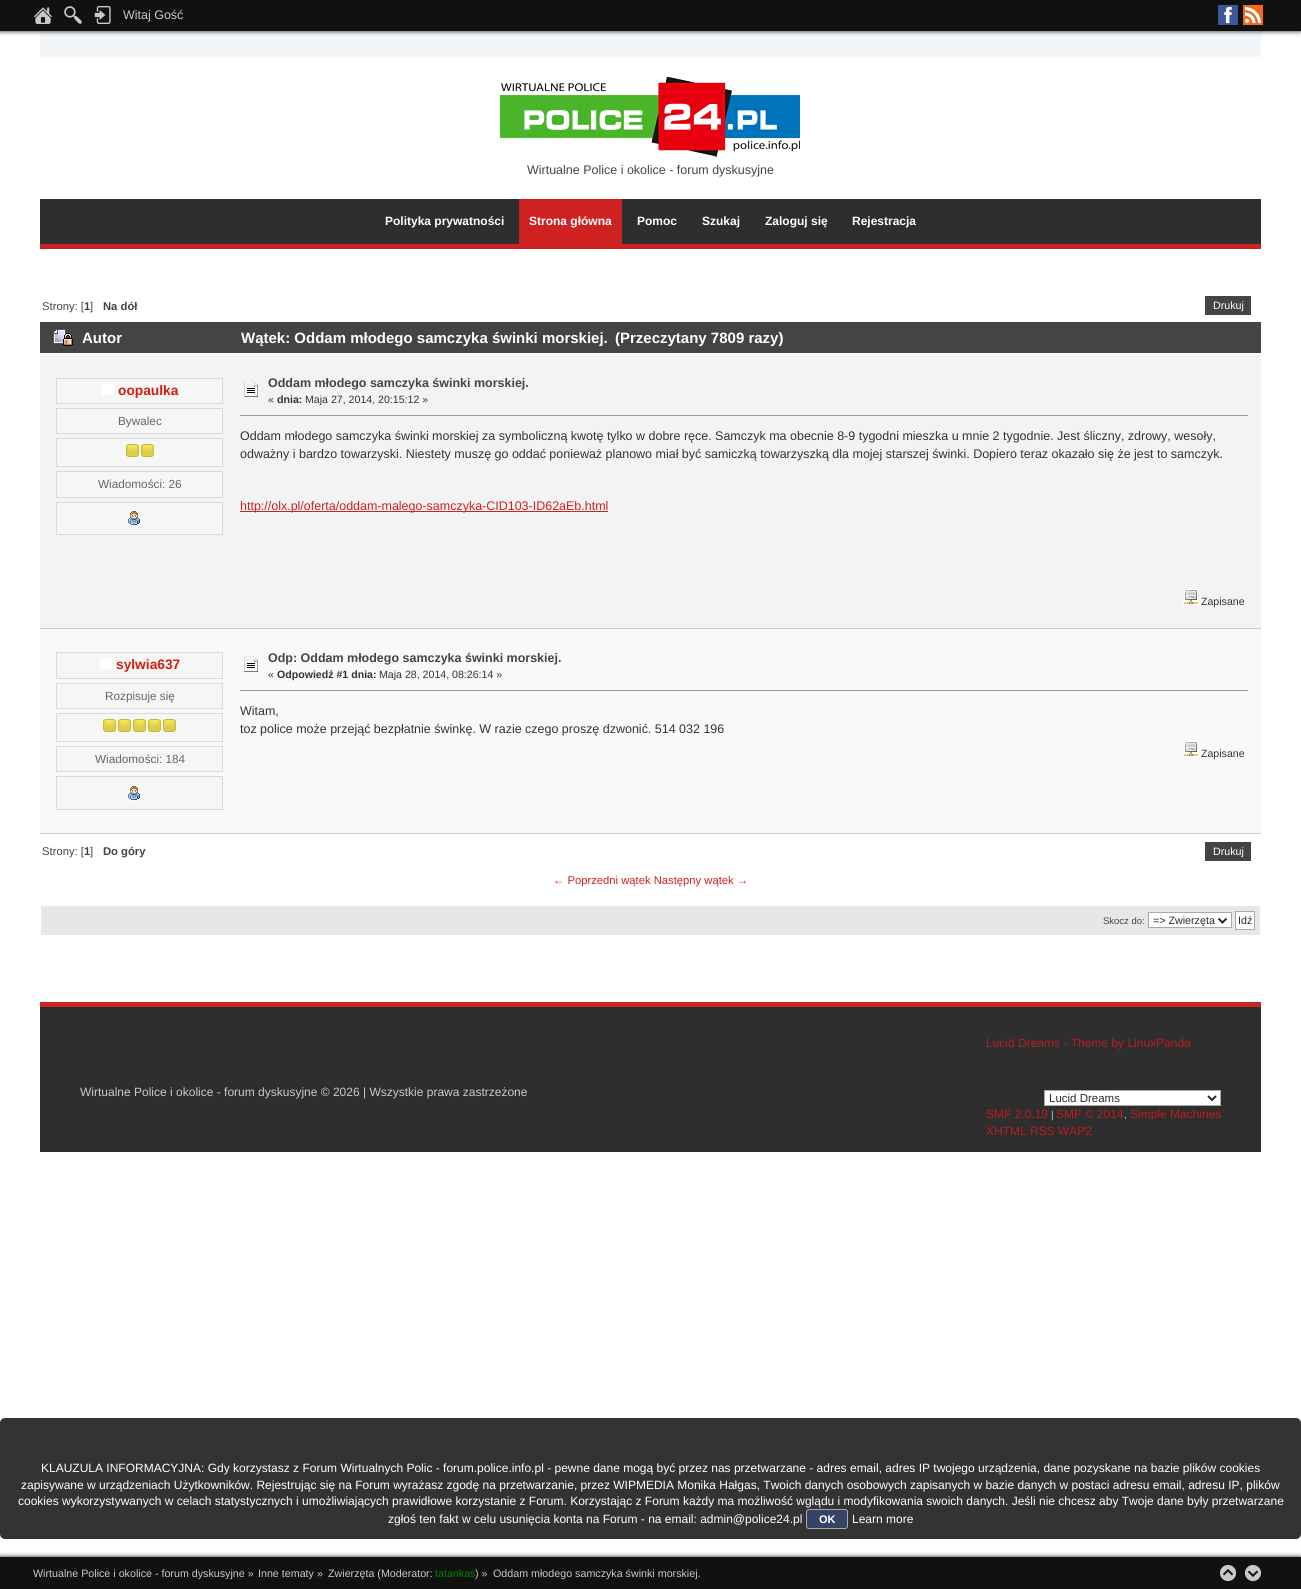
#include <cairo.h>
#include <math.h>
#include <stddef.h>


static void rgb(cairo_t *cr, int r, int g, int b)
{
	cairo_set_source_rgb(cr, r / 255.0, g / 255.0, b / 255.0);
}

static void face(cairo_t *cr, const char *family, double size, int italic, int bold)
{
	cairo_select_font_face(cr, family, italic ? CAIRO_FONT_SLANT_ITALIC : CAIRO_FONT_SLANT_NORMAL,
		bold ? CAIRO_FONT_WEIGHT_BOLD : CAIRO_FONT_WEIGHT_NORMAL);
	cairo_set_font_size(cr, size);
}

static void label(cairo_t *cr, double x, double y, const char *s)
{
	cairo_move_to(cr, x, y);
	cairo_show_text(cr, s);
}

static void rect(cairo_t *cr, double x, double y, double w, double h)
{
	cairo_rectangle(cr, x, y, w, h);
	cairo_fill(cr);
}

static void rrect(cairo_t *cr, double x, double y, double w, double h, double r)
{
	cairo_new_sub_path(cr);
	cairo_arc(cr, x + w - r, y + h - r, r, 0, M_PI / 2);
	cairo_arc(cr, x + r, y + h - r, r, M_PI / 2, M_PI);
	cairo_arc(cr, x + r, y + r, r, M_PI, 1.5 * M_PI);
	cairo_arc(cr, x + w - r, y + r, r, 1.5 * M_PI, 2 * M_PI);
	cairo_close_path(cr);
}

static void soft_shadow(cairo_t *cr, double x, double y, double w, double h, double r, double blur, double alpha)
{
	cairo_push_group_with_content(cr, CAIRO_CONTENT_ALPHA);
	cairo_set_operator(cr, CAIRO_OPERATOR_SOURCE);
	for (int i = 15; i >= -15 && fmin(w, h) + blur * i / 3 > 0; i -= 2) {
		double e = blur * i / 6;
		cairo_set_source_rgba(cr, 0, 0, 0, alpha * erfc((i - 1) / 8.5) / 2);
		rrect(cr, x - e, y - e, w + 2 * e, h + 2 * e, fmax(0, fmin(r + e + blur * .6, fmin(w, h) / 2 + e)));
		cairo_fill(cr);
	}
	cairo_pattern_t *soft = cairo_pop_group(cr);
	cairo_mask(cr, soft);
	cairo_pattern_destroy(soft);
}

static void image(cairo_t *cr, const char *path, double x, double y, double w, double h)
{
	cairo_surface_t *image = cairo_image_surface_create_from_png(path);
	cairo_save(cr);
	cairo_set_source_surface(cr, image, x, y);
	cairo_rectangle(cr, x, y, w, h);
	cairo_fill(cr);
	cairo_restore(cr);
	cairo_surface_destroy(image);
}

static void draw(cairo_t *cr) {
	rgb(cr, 255, 255, 255);
	cairo_paint(cr);
	rgb(cr, 242, 246, 248);
	rect(cr, 40, 32, 1221, 25);
	rgb(cr, 0, 0, 0);
	soft_shadow(cr, 0, 0, 1301, 31, 0, 2.5, 0.9);
	rgb(cr, 17, 17, 17);
	rect(cr, 0, 0, 1301, 31);
	image(cr, "image0.png", 34, 7, 18, 17);
	image(cr, "image1.png", 64, 6, 18, 18);
	image(cr, "image2.png", 94, 6, 17, 18);
	face(cr, "Liberation Sans", 12.48, 0, 0);
	rgb(cr, 202, 202, 202);
	label(cr, 123, 19, "Witaj Gość");
	rgb(cr, 59, 89, 152);
	rect(cr, 1218, 5, 20, 20);
	image(cr, "image3.png", 1224, 6, 8, 18);
	rgb(cr, 248, 104, 17);
	rect(cr, 1243, 5, 20, 20);
	image(cr, "image4.png", 1244, 6, 18, 18);
	image(cr, "image5.png", 500, 77, 300, 80);
	rgb(cr, 68, 68, 68);
	label(cr, 527, 174, "Wirtualne Police i okolice - forum dyskusyjne");
	rgb(cr, 46, 46, 46);
	rect(cr, 40, 199, 1221, 45);
	rgb(cr, 205, 33, 34);
	rect(cr, 40, 244, 1221, 5);
	face(cr, "Liberation Sans", 12, 0, 1);
	rgb(cr, 255, 255, 255);
	label(cr, 385, 225, "Polityka prywatności");
	rgb(cr, 205, 33, 34);
	rect(cr, 519, 199, 103, 45);
	rgb(cr, 255, 255, 255);
	label(cr, 529, 225, "Strona główna");
	label(cr, 637, 225, "Pomoc");
	label(cr, 702, 225, "Szukaj");
	label(cr, 765, 225, "Zaloguj się");
	label(cr, 852, 225, "Rejestracja");
	face(cr, "Liberation Sans", 11.25, 0, 0);
	rgb(cr, 68, 68, 68);
	label(cr, 42, 310, "Strony: [");
	face(cr, "Liberation Sans", 11.25, 0, 1);
	label(cr, 84, 310, "1");
	face(cr, "Liberation Sans", 11.25, 0, 0);
	label(cr, 90, 310, "]");
	face(cr, "Liberation Sans", 11.25, 0, 1);
	label(cr, 103, 310, "Na dół");
	rrect(cr, 1205, 296, 46, 19, 0.5);
	cairo_fill(cr);
	rrect(cr, 1213, 296, 38, 19, 1);
	cairo_fill(cr);
	face(cr, "Liberation Sans", 10.7, 0, 0);
	rgb(cr, 255, 255, 255);
	label(cr, 1213, 309, "Drukuj");
	rgb(cr, 68, 68, 68);
	rect(cr, 40, 322, 1221, 31);
	image(cr, "image6.png", 53, 329, 20, 17);
	face(cr, "Liberation Sans", 15, 0, 1);
	rgb(cr, 255, 255, 255);
	label(cr, 82, 343, "Autor");
	label(cr, 241, 343, "Wątek: Oddam młodego samczyka świnki morskiej.");
	label(cr, 615, 343, "(Przeczytany 7809 razy)");
	rgb(cr, 243, 243, 243);
	rect(cr, 40, 355, 1221, 273);
	rgb(cr, 246, 246, 246);
	cairo_rectangle(cr, 56.5, 378.5, 166, 25);
	cairo_fill_preserve(cr);
	rgb(cr, 218, 218, 218);
	cairo_set_line_width(cr, 1);
	cairo_stroke(cr);
	rgb(cr, 255, 255, 255);
	rect(cr, 102, 384, 12, 11);
	face(cr, "Liberation Sans", 13.75, 0, 1);
	rgb(cr, 205, 33, 18);
	label(cr, 118, 395, "oopaulka");
	rgb(cr, 246, 246, 246);
	cairo_rectangle(cr, 56.5, 408.5, 166, 25);
	cairo_fill_preserve(cr);
	rgb(cr, 218, 218, 218);
	cairo_stroke(cr);
	face(cr, "Liberation Sans", 11.75, 0, 0);
	rgb(cr, 102, 102, 102);
	label(cr, 118, 425, "Bywalec");
	rgb(cr, 246, 246, 246);
	cairo_rectangle(cr, 56.5, 438.5, 166, 28);
	cairo_fill_preserve(cr);
	rgb(cr, 218, 218, 218);
	cairo_stroke(cr);
	image(cr, "image7.png", 126, 444, 13, 13);
	image(cr, "image7.png", 141, 444, 13, 13);
	rgb(cr, 246, 246, 246);
	cairo_rectangle(cr, 56.5, 471.5, 166, 26);
	cairo_fill_preserve(cr);
	rgb(cr, 218, 218, 218);
	cairo_stroke(cr);
	rgb(cr, 102, 102, 102);
	label(cr, 98, 488, "Wiadomości: 26");
	rgb(cr, 246, 246, 246);
	cairo_rectangle(cr, 56.5, 502.5, 166, 32);
	cairo_fill_preserve(cr);
	rgb(cr, 218, 218, 218);
	cairo_stroke(cr);
	image(cr, "image8.png", 127, 510, 14, 16);
	image(cr, "image9.png", 244, 381, 14, 16);
	face(cr, "Liberation Sans", 12.48, 0, 1);
	rgb(cr, 68, 68, 68);
	label(cr, 268, 387, "Oddam młodego samczyka świnki morskiej.");
	face(cr, "Liberation Sans", 10.6, 0, 0);
	rgb(cr, 51, 51, 51);
	label(cr, 268, 403, "«");
	face(cr, "Liberation Sans", 10.6, 0, 1);
	label(cr, 277, 403, "dnia:");
	face(cr, "Liberation Sans", 10.6, 0, 0);
	label(cr, 305, 403, "Maja 27, 2014, 20:15:12 »");
	rgb(cr, 153, 153, 170);
	rect(cr, 240, 415, 1008, 1);
	face(cr, "Liberation Sans", 12.48, 0, 0);
	rgb(cr, 51, 51, 51);
	label(cr, 240, 440, "Oddam młodego samczyka świnki morskiej za symboliczną kwotę tylko w dobre ręce. Samczyk ma obecnie 8-9 tygodni mieszka u mnie 2 tygodnie. Jest śliczny, zdrowy, wesoły,");
	label(cr, 240, 458, "odważny i bardzo towarzyski. Niestety muszę go oddać ponieważ planowo miał być samiczką towarzyszką dla mojej starszej świnki. Dopiero teraz okazało się że jest to samczyk.");
	rgb(cr, 205, 33, 34);
	rect(cr, 240, 511, 368, 1);
	label(cr, 240, 510, "http://olx.pl/oferta/oddam-malego-samczyka-CID103-ID62aEb.html");
	image(cr, "image10.png", 1183, 589, 16, 16);
	face(cr, "Liberation Sans", 10.6, 0, 0);
	rgb(cr, 51, 51, 51);
	label(cr, 1201, 605, "Zapisane");
	rgb(cr, 204, 204, 204);
	rect(cr, 40, 628, 1221, 1);
	rgb(cr, 249, 249, 249);
	rect(cr, 40, 629, 1221, 204);
	rgb(cr, 246, 246, 246);
	cairo_rectangle(cr, 56.5, 652.5, 166, 26);
	cairo_fill_preserve(cr);
	rgb(cr, 218, 218, 218);
	cairo_stroke(cr);
	rgb(cr, 255, 255, 255);
	rect(cr, 100, 658, 12, 11);
	face(cr, "Liberation Sans", 13.75, 0, 1);
	rgb(cr, 205, 33, 18);
	label(cr, 116, 669, "sylwia637");
	rgb(cr, 246, 246, 246);
	cairo_rectangle(cr, 56.5, 683.5, 166, 25);
	cairo_fill_preserve(cr);
	rgb(cr, 218, 218, 218);
	cairo_stroke(cr);
	face(cr, "Liberation Sans", 11.75, 0, 0);
	rgb(cr, 102, 102, 102);
	label(cr, 105, 700, "Rozpisuje się");
	rgb(cr, 246, 246, 246);
	cairo_rectangle(cr, 56.5, 713.5, 166, 28);
	cairo_fill_preserve(cr);
	rgb(cr, 218, 218, 218);
	cairo_stroke(cr);
	image(cr, "image7.png", 103, 719, 13, 13);
	image(cr, "image7.png", 118, 719, 13, 13);
	image(cr, "image7.png", 133, 719, 13, 13);
	image(cr, "image7.png", 148, 719, 13, 13);
	image(cr, "image7.png", 163, 719, 13, 13);
	rgb(cr, 246, 246, 246);
	cairo_rectangle(cr, 56.5, 746.5, 166, 25);
	cairo_fill_preserve(cr);
	rgb(cr, 218, 218, 218);
	cairo_stroke(cr);
	rgb(cr, 102, 102, 102);
	label(cr, 95, 763, "Wiadomości: 184");
	rgb(cr, 246, 246, 246);
	cairo_rectangle(cr, 56.5, 776.5, 166, 33);
	cairo_fill_preserve(cr);
	rgb(cr, 218, 218, 218);
	cairo_stroke(cr);
	image(cr, "image8.png", 127, 785, 14, 16);
	image(cr, "image11.png", 244, 656, 14, 16);
	face(cr, "Liberation Sans", 12.48, 0, 1);
	rgb(cr, 68, 68, 68);
	label(cr, 268, 662, "Odp: Oddam młodego samczyka świnki morskiej.");
	face(cr, "Liberation Sans", 10.6, 0, 0);
	rgb(cr, 51, 51, 51);
	label(cr, 268, 678, "«");
	face(cr, "Liberation Sans", 10.6, 0, 1);
	label(cr, 277, 678, "Odpowiedź #1 dnia:");
	face(cr, "Liberation Sans", 10.6, 0, 0);
	label(cr, 379, 678, "Maja 28, 2014, 08:26:14 »");
	rgb(cr, 153, 153, 170);
	rect(cr, 240, 690, 1008, 1);
	face(cr, "Liberation Sans", 12.48, 0, 0);
	rgb(cr, 51, 51, 51);
	label(cr, 240, 715, "Witam,");
	label(cr, 240, 733, "toz police może przejąć bezpłatnie świnkę. W razie czego proszę dzwonić. 514 032 196");
	image(cr, "image12.png", 1183, 741, 16, 16);
	face(cr, "Liberation Sans", 10.6, 0, 0);
	label(cr, 1201, 757, "Zapisane");
	rgb(cr, 204, 204, 204);
	rect(cr, 40, 833, 1221, 1);
	face(cr, "Liberation Sans", 11.25, 0, 0);
	rgb(cr, 68, 68, 68);
	label(cr, 42, 855, "Strony: [");
	face(cr, "Liberation Sans", 11.25, 0, 1);
	label(cr, 84, 855, "1");
	face(cr, "Liberation Sans", 11.25, 0, 0);
	label(cr, 90, 855, "]");
	face(cr, "Liberation Sans", 11.25, 0, 1);
	label(cr, 103, 855, "Do góry");
	rrect(cr, 1205, 842, 46, 19, 0.5);
	cairo_fill(cr);
	rrect(cr, 1213, 842, 38, 19, 1);
	cairo_fill(cr);
	face(cr, "Liberation Sans", 10.7, 0, 0);
	rgb(cr, 255, 255, 255);
	label(cr, 1213, 855, "Drukuj");
	face(cr, "Liberation Sans", 11.25, 0, 0);
	rgb(cr, 205, 33, 34);
	label(cr, 553, 884, "← Poprzedni wątek Następny wątek →");
	rgb(cr, 231, 231, 231);
	rect(cr, 41, 906, 1219, 29);
	face(cr, "Liberation Sans", 9.5, 0, 0);
	rgb(cr, 68, 68, 68);
	label(cr, 1103, 924, "Skocz do:");
	rgb(cr, 255, 255, 255);
	cairo_rectangle(cr, 1148.5, 912.5, 83, 15);
	cairo_fill_preserve(cr);
	rgb(cr, 170, 170, 170);
	cairo_stroke(cr);
	cairo_new_path(cr);
	cairo_move_to(cr, 1218.5, 918.5);
	cairo_line_to(cr, 1222.5, 922.5);
	cairo_line_to(cr, 1226.5, 918.5);
	rgb(cr, 38, 42, 47);
	cairo_set_line_width(cr, 2);
	cairo_stroke(cr);
	face(cr, "Liberation Sans", 10.7, 0, 0);
	label(cr, 1153, 924, "=> Zwierzęta");
	rgb(cr, 255, 255, 255);
	cairo_rectangle(cr, 1235.5, 911.5, 19, 18);
	cairo_fill_preserve(cr);
	rgb(cr, 170, 170, 170);
	cairo_set_line_width(cr, 1);
	cairo_stroke(cr);
	rgb(cr, 38, 42, 47);
	label(cr, 1238, 924, "Idź");
	rgb(cr, 46, 46, 46);
	rect(cr, 40, 1007, 1221, 145);
	rgb(cr, 205, 33, 34);
	rect(cr, 40, 1002, 1221, 5);
	face(cr, "Liberation Sans", 12, 0, 0);
	rgb(cr, 202, 202, 202);
	label(cr, 80, 1096, "Wirtualne Police i okolice - forum dyskusyjne © 2026 | Wszystkie prawa zastrzeżone");
	rgb(cr, 183, 29, 30);
	label(cr, 986, 1047, "Lucid Dreams - Theme by LinuxPanda");
	rgb(cr, 255, 255, 255);
	cairo_rectangle(cr, 1044.5, 1090.5, 176, 15);
	cairo_fill_preserve(cr);
	rgb(cr, 170, 170, 170);
	cairo_stroke(cr);
	cairo_new_path(cr);
	cairo_move_to(cr, 1208, 1096);
	cairo_line_to(cr, 1212, 1100);
	cairo_line_to(cr, 1216, 1096);
	rgb(cr, 38, 42, 47);
	cairo_set_line_width(cr, 2);
	cairo_stroke(cr);
	face(cr, "Liberation Sans", 11.5, 0, 0);
	label(cr, 1049, 1102, "Lucid Dreams");
	face(cr, "Liberation Sans", 12, 0, 0);
	rgb(cr, 183, 29, 30);
	label(cr, 986, 1118, "SMF 2.0.19");
	face(cr, "Liberation Sans", 10, 0, 0);
	rgb(cr, 202, 202, 202);
	label(cr, 1051, 1118, "|");
	face(cr, "Liberation Sans", 12, 0, 0);
	rgb(cr, 183, 29, 30);
	label(cr, 1056, 1118, "SMF © 2014");
	face(cr, "Liberation Sans", 10, 0, 0);
	rgb(cr, 202, 202, 202);
	label(cr, 1124, 1118, ",");
	face(cr, "Liberation Sans", 12, 0, 0);
	rgb(cr, 183, 29, 30);
	label(cr, 1130, 1118, "Simple Machines");
	label(cr, 986, 1135, "XHTML RSS WAP2");
	rgb(cr, 51, 51, 51);
	rrect(cr, 0, 1418, 1301, 121, 5);
	cairo_fill(cr);
	rgb(cr, 255, 255, 255);
	label(cr, 41, 1472, "KLAUZULA INFORMACYJNA: Gdy korzystasz z Forum Wirtualnych Polic - forum.police.info.pl - pewne dane mogą być przez nas przetwarzane - adres email, adres IP twojego urządzenia, dane pozyskane na bazie plików cookies");
	label(cr, 21, 1489, "zapisywane w urządzeniach Użytkowników. Rejestrując się na Forum wyrażasz zgodę na przetwarzanie, przez WIPMEDIA Monika Hałgas, Twoich danych osobowych zapisanych w bazie danych w postaci adresu email, adresu IP, plików");
	label(cr, 18, 1505, "cookies wykorzystywanych w celach statystycznych i umożliwiających prawidłowe korzystanie z Forum. Korzystając z Forum każdy ma możliwość wglądu i modyfikowania swoich danych. Jeśli nie chcesz aby Twoje dane były przetwarzane");
	label(cr, 388, 1523, "zgłoś ten fakt w celu usunięcia konta na Forum - na email: admin@police24.pl");
	rgb(cr, 51, 68, 102);
	rrect(cr, 806.5, 1509.5, 41, 19, 2.5);
	cairo_fill_preserve(cr);
	rgb(cr, 170, 170, 170);
	cairo_set_line_width(cr, 1);
	cairo_stroke(cr);
	face(cr, "Liberation Sans", 11, 0, 1);
	rgb(cr, 255, 255, 255);
	label(cr, 819, 1523, "OK");
	face(cr, "Liberation Sans", 12, 0, 0);
	label(cr, 852, 1523, "Learn more");
	rgb(cr, 0, 0, 0);
	soft_shadow(cr, 0, 1557, 1301, 32, 0, 2.5, 0.9);
	rgb(cr, 17, 17, 17);
	rect(cr, 0, 1557, 1301, 32);
	face(cr, "Liberation Sans", 10.7, 0, 0);
	rgb(cr, 202, 202, 202);
	label(cr, 33, 1577, "Wirtualne Police i okolice - forum dyskusyjne »");
	label(cr, 258, 1577, "Inne tematy »");
	label(cr, 328, 1577, "Zwierzęta (Moderator:");
	rgb(cr, 0, 128, 0);
	label(cr, 435, 1577, "tatankas");
	rgb(cr, 202, 202, 202);
	label(cr, 475, 1577, ") »");
	label(cr, 493, 1577, "Oddam młodego samczyka świnki morskiej.");
	image(cr, "image13.png", 1220, 1564, 17, 17);
	image(cr, "image14.png", 1244, 1564, 17, 18);
}

int main(void) {
	cairo_surface_t *surface = cairo_image_surface_create(CAIRO_FORMAT_RGB24, 1301, 1589);
	cairo_t *cr = cairo_create(surface);
	cairo_font_options_t *options = cairo_font_options_create();
	cairo_font_options_set_hint_metrics(options, CAIRO_HINT_METRICS_OFF);
	cairo_font_options_set_hint_style(options, CAIRO_HINT_STYLE_NONE);
	cairo_set_font_options(cr, options);
	cairo_set_miter_limit(cr, 4);
	draw(cr);
	cairo_surface_write_to_png(surface, "render.png");
	cairo_font_options_destroy(options);
	cairo_destroy(cr);
	cairo_surface_destroy(surface);
	return 0;
}
